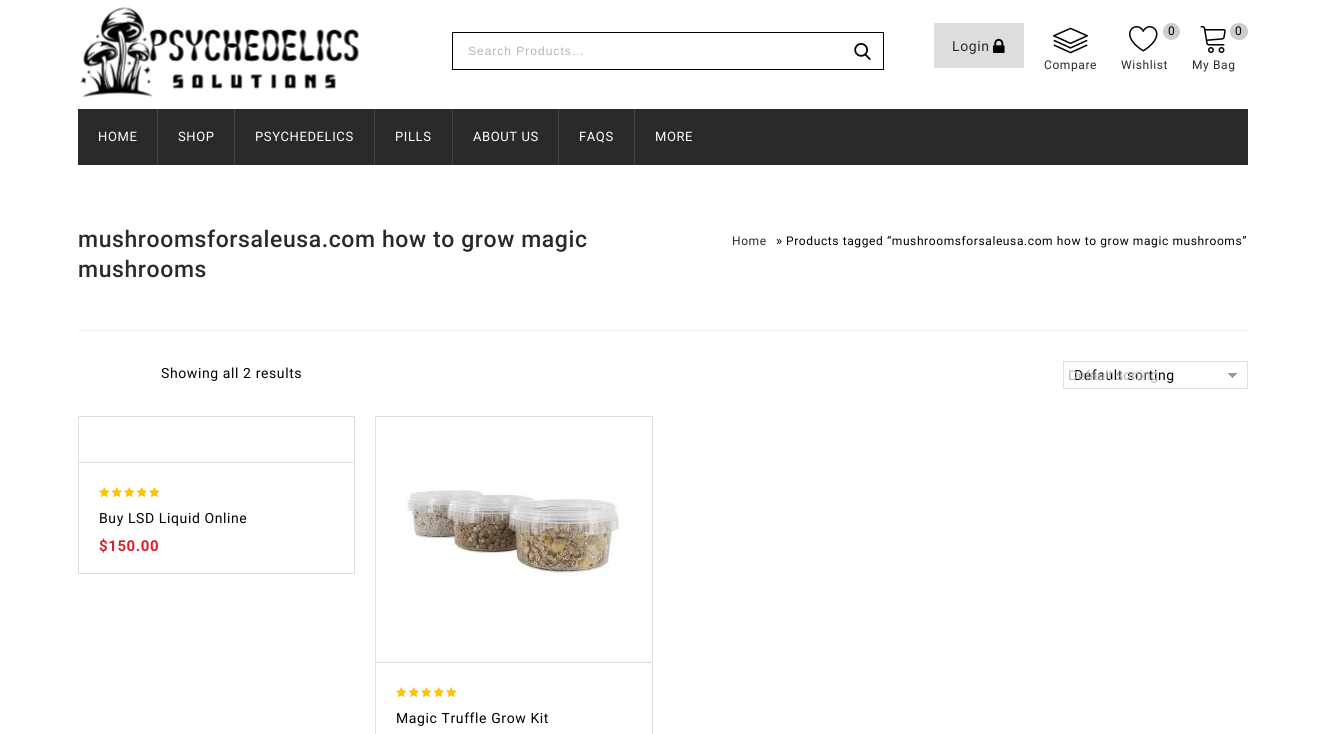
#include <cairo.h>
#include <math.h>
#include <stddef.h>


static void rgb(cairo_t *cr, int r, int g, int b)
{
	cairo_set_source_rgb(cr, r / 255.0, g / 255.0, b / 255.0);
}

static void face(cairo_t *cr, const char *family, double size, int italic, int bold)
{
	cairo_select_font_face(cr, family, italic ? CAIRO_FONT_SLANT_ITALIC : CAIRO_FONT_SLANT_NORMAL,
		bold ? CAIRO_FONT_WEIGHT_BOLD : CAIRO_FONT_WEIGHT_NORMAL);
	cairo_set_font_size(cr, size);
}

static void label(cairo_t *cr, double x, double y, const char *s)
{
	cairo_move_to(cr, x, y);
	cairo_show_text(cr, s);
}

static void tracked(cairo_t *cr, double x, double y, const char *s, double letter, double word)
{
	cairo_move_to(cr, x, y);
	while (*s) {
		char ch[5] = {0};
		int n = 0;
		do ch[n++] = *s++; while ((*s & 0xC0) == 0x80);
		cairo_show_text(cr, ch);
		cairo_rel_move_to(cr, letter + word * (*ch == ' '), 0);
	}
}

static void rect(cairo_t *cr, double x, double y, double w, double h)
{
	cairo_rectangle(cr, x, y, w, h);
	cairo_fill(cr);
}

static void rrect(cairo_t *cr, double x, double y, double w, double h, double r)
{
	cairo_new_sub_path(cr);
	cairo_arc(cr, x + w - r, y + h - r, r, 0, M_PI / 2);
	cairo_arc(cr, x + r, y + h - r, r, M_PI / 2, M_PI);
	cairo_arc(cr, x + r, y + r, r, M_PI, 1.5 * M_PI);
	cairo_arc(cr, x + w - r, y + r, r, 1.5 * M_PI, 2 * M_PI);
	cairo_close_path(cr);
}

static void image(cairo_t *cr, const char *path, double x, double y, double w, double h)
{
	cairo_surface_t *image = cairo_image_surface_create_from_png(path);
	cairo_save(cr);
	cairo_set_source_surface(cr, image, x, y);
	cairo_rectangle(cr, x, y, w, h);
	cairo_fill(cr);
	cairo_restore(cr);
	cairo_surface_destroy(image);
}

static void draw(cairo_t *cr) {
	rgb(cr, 255, 255, 255);
	cairo_paint(cr);
	image(cr, "image0.png", 80, 7, 279, 91);
	cairo_rectangle(cr, 452.5, 32.5, 431, 37);
	rgb(cr, 0, 0, 0);
	cairo_set_line_width(cr, 1);
	cairo_stroke(cr);
	face(cr, "Liberation Sans", 12, 0, 0);
	rgb(cr, 181, 181, 181);
	tracked(cr, 468, 55, "Search Products…", 1, 0);
	image(cr, "image1.png", 854, 43, 17, 17);
	rgb(cr, 221, 221, 221);
	rect(cr, 934, 23, 90, 45);
	face(cr, "Roboto", 14, 0, 0);
	rgb(cr, 42, 42, 42);
	tracked(cr, 952, 51, "Login", 0.6, 0);
	image(cr, "image2.png", 993, 38, 12, 15);
	image(cr, "image3.png", 1053, 27, 35, 27);
	face(cr, "Roboto", 12, 0, 0);
	tracked(cr, 1044, 69, "Compare", 0.6, 0);
	rgb(cr, 205, 205, 205);
	cairo_new_path(cr);
	cairo_arc(cr, 1171.5, 31.5, 8.5, 0, 2 * M_PI);
	cairo_fill(cr);
	rgb(cr, 0, 0, 0);
	tracked(cr, 1168, 35, "0", 0.6, 0);
	image(cr, "image4.png", 1129, 26, 29, 26);
	rgb(cr, 42, 42, 42);
	tracked(cr, 1121, 69, "Wishlist", 0.6, 0);
	rgb(cr, 205, 205, 205);
	rrect(cr, 1230, 23, 18, 17, 8.5);
	cairo_fill(cr);
	rgb(cr, 0, 0, 0);
	tracked(cr, 1235, 35, "0", 0.6, 0);
	image(cr, "image5.png", 1200, 26, 26, 27);
	rgb(cr, 42, 42, 42);
	tracked(cr, 1192, 69, "My Bag", 0.6, 0);
	rect(cr, 78, 109, 1170, 56);
	rgb(cr, 67, 67, 67);
	rect(cr, 157, 109, 1, 56);
	face(cr, "Roboto", 13, 0, 0);
	rgb(cr, 255, 255, 255);
	tracked(cr, 98, 141, "HOME", 0.6, 0);
	rgb(cr, 67, 67, 67);
	rect(cr, 234, 109, 1, 56);
	rgb(cr, 255, 255, 255);
	tracked(cr, 178, 141, "SHOP", 0.6, 0);
	rgb(cr, 67, 67, 67);
	rect(cr, 374, 109, 1, 56);
	rgb(cr, 255, 255, 255);
	tracked(cr, 255, 141, "PSYCHEDELICS", 0.6, 0);
	rgb(cr, 67, 67, 67);
	rect(cr, 452, 109, 1, 56);
	rgb(cr, 255, 255, 255);
	tracked(cr, 395, 141, "PILLS", 0.6, 0);
	rgb(cr, 67, 67, 67);
	rect(cr, 558, 109, 1, 56);
	rgb(cr, 255, 255, 255);
	tracked(cr, 473, 141, "ABOUT US", 0.6, 0);
	rgb(cr, 67, 67, 67);
	rect(cr, 634, 109, 1, 56);
	rgb(cr, 255, 255, 255);
	tracked(cr, 579, 141, "FAQS", 0.6, 0);
	tracked(cr, 655, 141, "MORE", 0.6, 0);
	face(cr, "Roboto Medium", 23, 0, 0);
	rgb(cr, 42, 42, 42);
	tracked(cr, 78, 247, "mushroomsforsaleusa.com how to grow magic", 0.6, 0);
	tracked(cr, 78, 277, "mushrooms", 0.6, 0);
	face(cr, "Roboto", 12, 0, 0);
	tracked(cr, 732, 245, "Home", 0.6, 0);
	face(cr, "Roboto", 13, 0, 0);
	rgb(cr, 0, 0, 0);
	tracked(cr, 776, 245, "»", 0.6, 0);
	face(cr, "Roboto", 12, 0, 0);
	tracked(cr, 786, 245, "Products tagged “mushroomsforsaleusa.com how to grow magic mushrooms”", 0.6, 0);
	rgb(cr, 237, 237, 237);
	rect(cr, 78, 330, 1170, 1);
	face(cr, "Roboto", 14, 0, 0);
	rgb(cr, 0, 0, 0);
	tracked(cr, 161, 378, "Showing all 2 results", 0.6, 0);
	cairo_rectangle(cr, 1063.5, 361.5, 184, 27);
	rgb(cr, 224, 224, 224);
	cairo_stroke(cr);
	image(cr, "image6.png", 1228, 373, 9, 5);
	rrect(cr, 1063.5, 361.5, 184, 27, 1.5);
	cairo_stroke(cr);
	rgb(cr, 0, 0, 0);
	tracked(cr, 1074, 380, "Default sorting", 0.6, 0);
	face(cr, "Liberation Sans", 14, 0, 0);
	rgb(cr, 181, 181, 181);
	label(cr, 1068, 380, "Default sorting");
	cairo_rectangle(cr, 78.5, 416.5, 276, 157);
	rgb(cr, 221, 221, 221);
	cairo_stroke(cr);
	rect(cr, 79, 462, 275, 1);
	image(cr, "image7.png", 99, 487, 60, 10);
	image(cr, "image8.png", 99, 487, 60, 10);
	face(cr, "Roboto", 14, 0, 0);
	rgb(cr, 0, 0, 0);
	tracked(cr, 99, 523, "Buy LSD Liquid Online", 0.6, 0);
	face(cr, "Roboto", 15, 0, 1);
	rgb(cr, 218, 33, 40);
	tracked(cr, 99, 551, "$150.00", 0.6, 0);
	cairo_rectangle(cr, 375.5, 416.5, 277, 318);
	rgb(cr, 221, 221, 221);
	cairo_stroke(cr);
	image(cr, "image9.png", 405, 489, 220, 88);
	rect(cr, 376, 662, 276, 1);
	image(cr, "image7.png", 396, 687, 60, 10);
	image(cr, "image8.png", 396, 687, 60, 10);
	face(cr, "Roboto", 14, 0, 0);
	rgb(cr, 0, 0, 0);
	tracked(cr, 396, 723, "Magic Truffle Grow Kit", 0.6, 0);
}

int main(void) {
	cairo_surface_t *surface = cairo_image_surface_create(CAIRO_FORMAT_RGB24, 1325, 734);
	cairo_t *cr = cairo_create(surface);
	cairo_font_options_t *options = cairo_font_options_create();
	cairo_font_options_set_hint_metrics(options, CAIRO_HINT_METRICS_OFF);
	cairo_font_options_set_hint_style(options, CAIRO_HINT_STYLE_NONE);
	cairo_set_font_options(cr, options);
	cairo_set_miter_limit(cr, 4);
	draw(cr);
	cairo_surface_write_to_png(surface, "render.png");
	cairo_font_options_destroy(options);
	cairo_destroy(cr);
	cairo_surface_destroy(surface);
	return 0;
}
